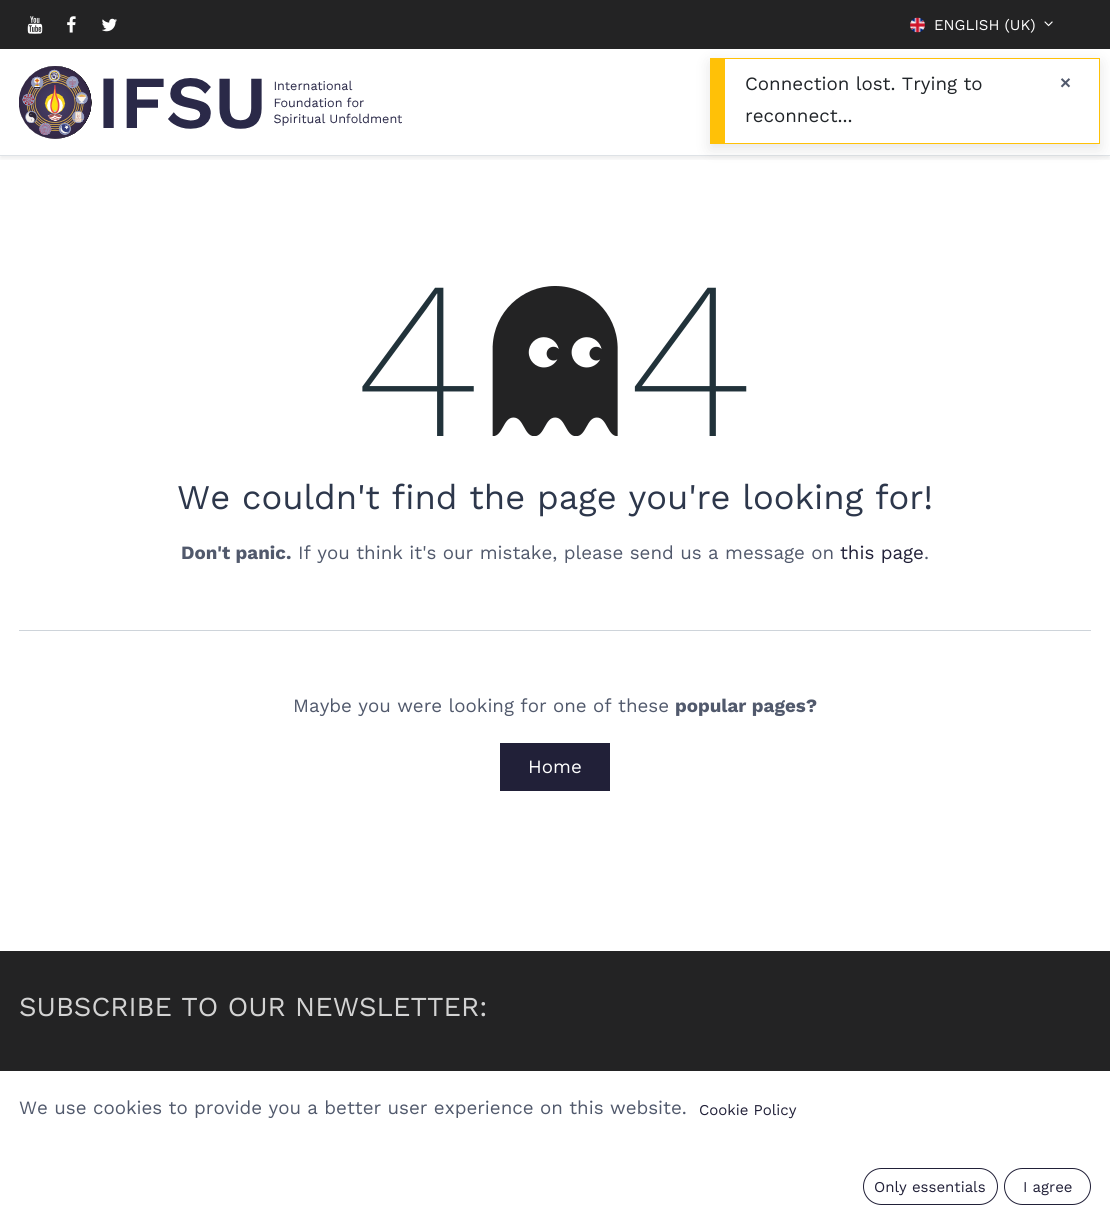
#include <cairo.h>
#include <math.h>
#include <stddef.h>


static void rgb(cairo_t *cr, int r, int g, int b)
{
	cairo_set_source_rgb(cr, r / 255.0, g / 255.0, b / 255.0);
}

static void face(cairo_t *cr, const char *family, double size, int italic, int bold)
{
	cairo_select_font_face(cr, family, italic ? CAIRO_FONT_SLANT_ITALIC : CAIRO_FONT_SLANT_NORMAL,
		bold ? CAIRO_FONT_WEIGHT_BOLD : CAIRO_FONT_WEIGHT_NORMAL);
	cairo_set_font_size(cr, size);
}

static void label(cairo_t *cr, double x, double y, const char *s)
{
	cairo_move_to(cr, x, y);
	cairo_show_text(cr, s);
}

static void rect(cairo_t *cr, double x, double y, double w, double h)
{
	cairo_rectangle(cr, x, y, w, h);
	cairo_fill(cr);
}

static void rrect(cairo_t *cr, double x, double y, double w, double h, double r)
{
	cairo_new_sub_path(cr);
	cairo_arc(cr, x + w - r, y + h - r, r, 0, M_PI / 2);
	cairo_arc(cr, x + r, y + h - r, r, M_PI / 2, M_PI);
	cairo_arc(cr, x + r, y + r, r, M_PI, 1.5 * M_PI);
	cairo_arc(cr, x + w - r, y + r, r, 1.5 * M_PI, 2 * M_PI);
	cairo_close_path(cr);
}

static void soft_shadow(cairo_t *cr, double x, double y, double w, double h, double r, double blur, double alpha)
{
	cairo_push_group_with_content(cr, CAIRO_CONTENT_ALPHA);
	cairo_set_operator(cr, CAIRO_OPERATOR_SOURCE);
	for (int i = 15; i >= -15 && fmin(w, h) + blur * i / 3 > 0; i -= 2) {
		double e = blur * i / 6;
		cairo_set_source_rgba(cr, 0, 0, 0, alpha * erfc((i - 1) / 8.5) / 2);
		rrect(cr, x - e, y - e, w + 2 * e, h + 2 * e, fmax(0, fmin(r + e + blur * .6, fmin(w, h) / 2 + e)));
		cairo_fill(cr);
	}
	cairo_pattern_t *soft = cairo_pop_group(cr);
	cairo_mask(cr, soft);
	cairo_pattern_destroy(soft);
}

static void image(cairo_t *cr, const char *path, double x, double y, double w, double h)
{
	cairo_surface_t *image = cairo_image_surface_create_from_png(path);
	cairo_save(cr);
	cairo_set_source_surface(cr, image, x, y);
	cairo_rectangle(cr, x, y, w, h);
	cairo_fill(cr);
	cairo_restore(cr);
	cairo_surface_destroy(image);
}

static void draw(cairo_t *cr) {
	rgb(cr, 255, 255, 255);
	cairo_paint(cr);
	rgb(cr, 35, 35, 36);
	rect(cr, 0, 0, 1110, 49);
	image(cr, "image0.png", 27, 16, 16, 18);
	image(cr, "image1.png", 67, 16, 9, 17);
	image(cr, "image2.png", 102, 18, 15, 14);
	image(cr, "image3.png", 910, 17, 15, 16);
	face(cr, "Work Sans", 15, 0, 0);
	rgb(cr, 255, 255, 255);
	label(cr, 934, 30, "ENGLISH (UK)");
	image(cr, "image4.png", 1044, 21, 9, 6);
	cairo_save(cr);
	cairo_rectangle(cr, 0, 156, 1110, 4);
	cairo_clip(cr);
	rgb(cr, 0, 0, 0);
	soft_shadow(cr, 0, 51, 1110, 108, 0, 2.5, 0.07);
	cairo_restore(cr);
	image(cr, "image5.png", 19, 66, 383, 73);
	rgb(cr, 222, 226, 230);
	rect(cr, 0, 155, 1110, 1);
	image(cr, "image6.png", 362, 286, 385, 150);
	face(cr, "Work Sans", 34.6, 0, 0);
	rgb(cr, 45, 55, 75);
	label(cr, 177, 509, "We couldn't find the page you're looking for!");
	face(cr, "Work Sans", 18.75, 0, 1);
	rgb(cr, 81, 89, 108);
	label(cr, 181, 559, "Don't panic.");
	face(cr, "Work Sans", 18.75, 0, 0);
	label(cr, 298, 559, "If you think it's our mistake, please send us a message on");
	rgb(cr, 33, 32, 56);
	label(cr, 840, 559, "this page");
	rgb(cr, 81, 89, 108);
	label(cr, 924, 559, ".");
	rgb(cr, 206, 212, 218);
	rect(cr, 19, 630, 1072, 1);
	rgb(cr, 81, 89, 108);
	label(cr, 293, 712, "Maybe you were looking for one of these");
	face(cr, "Work Sans", 18.75, 0, 1);
	label(cr, 675, 712, "popular pages?");
	rgb(cr, 33, 32, 56);
	rect(cr, 500, 743, 110, 48);
	face(cr, "Work Sans", 18.75, 0, 0);
	rgb(cr, 255, 255, 255);
	label(cr, 528, 773, "Home");
	rgb(cr, 35, 35, 36);
	rect(cr, 0, 951, 1110, 120);
	face(cr, "Work Sans", 27.4, 0, 0);
	rgb(cr, 211, 211, 211);
	label(cr, 19, 1016, "SUBSCRIBE TO OUR NEWSLETTER:");
	face(cr, "Work Sans", 18.75, 0, 0);
	rgb(cr, 81, 89, 108);
	label(cr, 19, 1114, "We use cookies to provide you a better user experience on this website.");
	face(cr, "Work Sans", 15, 0, 0);
	rgb(cr, 33, 32, 56);
	label(cr, 699, 1115, "Cookie Policy");
	rrect(cr, 863.5, 1168.5, 134, 36, 18);
	cairo_set_line_width(cr, 1);
	cairo_stroke(cr);
	label(cr, 874, 1192, "Only essentials");
	rrect(cr, 1004.5, 1168.5, 86, 36, 18);
	cairo_stroke(cr);
	label(cr, 1023, 1192, "I agree");
	rgb(cr, 0, 0, 0);
	soft_shadow(cr, 710, 63, 390, 86, 0, 7.5, 0.1);
	rgb(cr, 255, 255, 255);
	rect(cr, 725, 59, 374, 84);
	rgb(cr, 255, 193, 7);
	rect(cr, 725, 58, 375, 1);
	rect(cr, 1099, 58, 1, 86);
	rect(cr, 725, 143, 375, 1);
	rect(cr, 710, 58, 15, 86);
	face(cr, "Work Sans", 18.75, 0, 0);
	rgb(cr, 33, 37, 41);
	label(cr, 745, 90, "Connection lost. Trying to");
	label(cr, 745, 122, "reconnect...");
	face(cr, "Liberation Sans", 18.75, 0, 1);
	rgb(cr, 81, 89, 108);
	label(cr, 1060, 89, "×");
}

int main(void) {
	cairo_surface_t *surface = cairo_image_surface_create(CAIRO_FORMAT_RGB24, 1110, 1224);
	cairo_t *cr = cairo_create(surface);
	cairo_font_options_t *options = cairo_font_options_create();
	cairo_font_options_set_hint_metrics(options, CAIRO_HINT_METRICS_OFF);
	cairo_font_options_set_hint_style(options, CAIRO_HINT_STYLE_NONE);
	cairo_set_font_options(cr, options);
	cairo_set_miter_limit(cr, 4);
	draw(cr);
	cairo_surface_write_to_png(surface, "render.png");
	cairo_font_options_destroy(options);
	cairo_destroy(cr);
	cairo_surface_destroy(surface);
	return 0;
}
